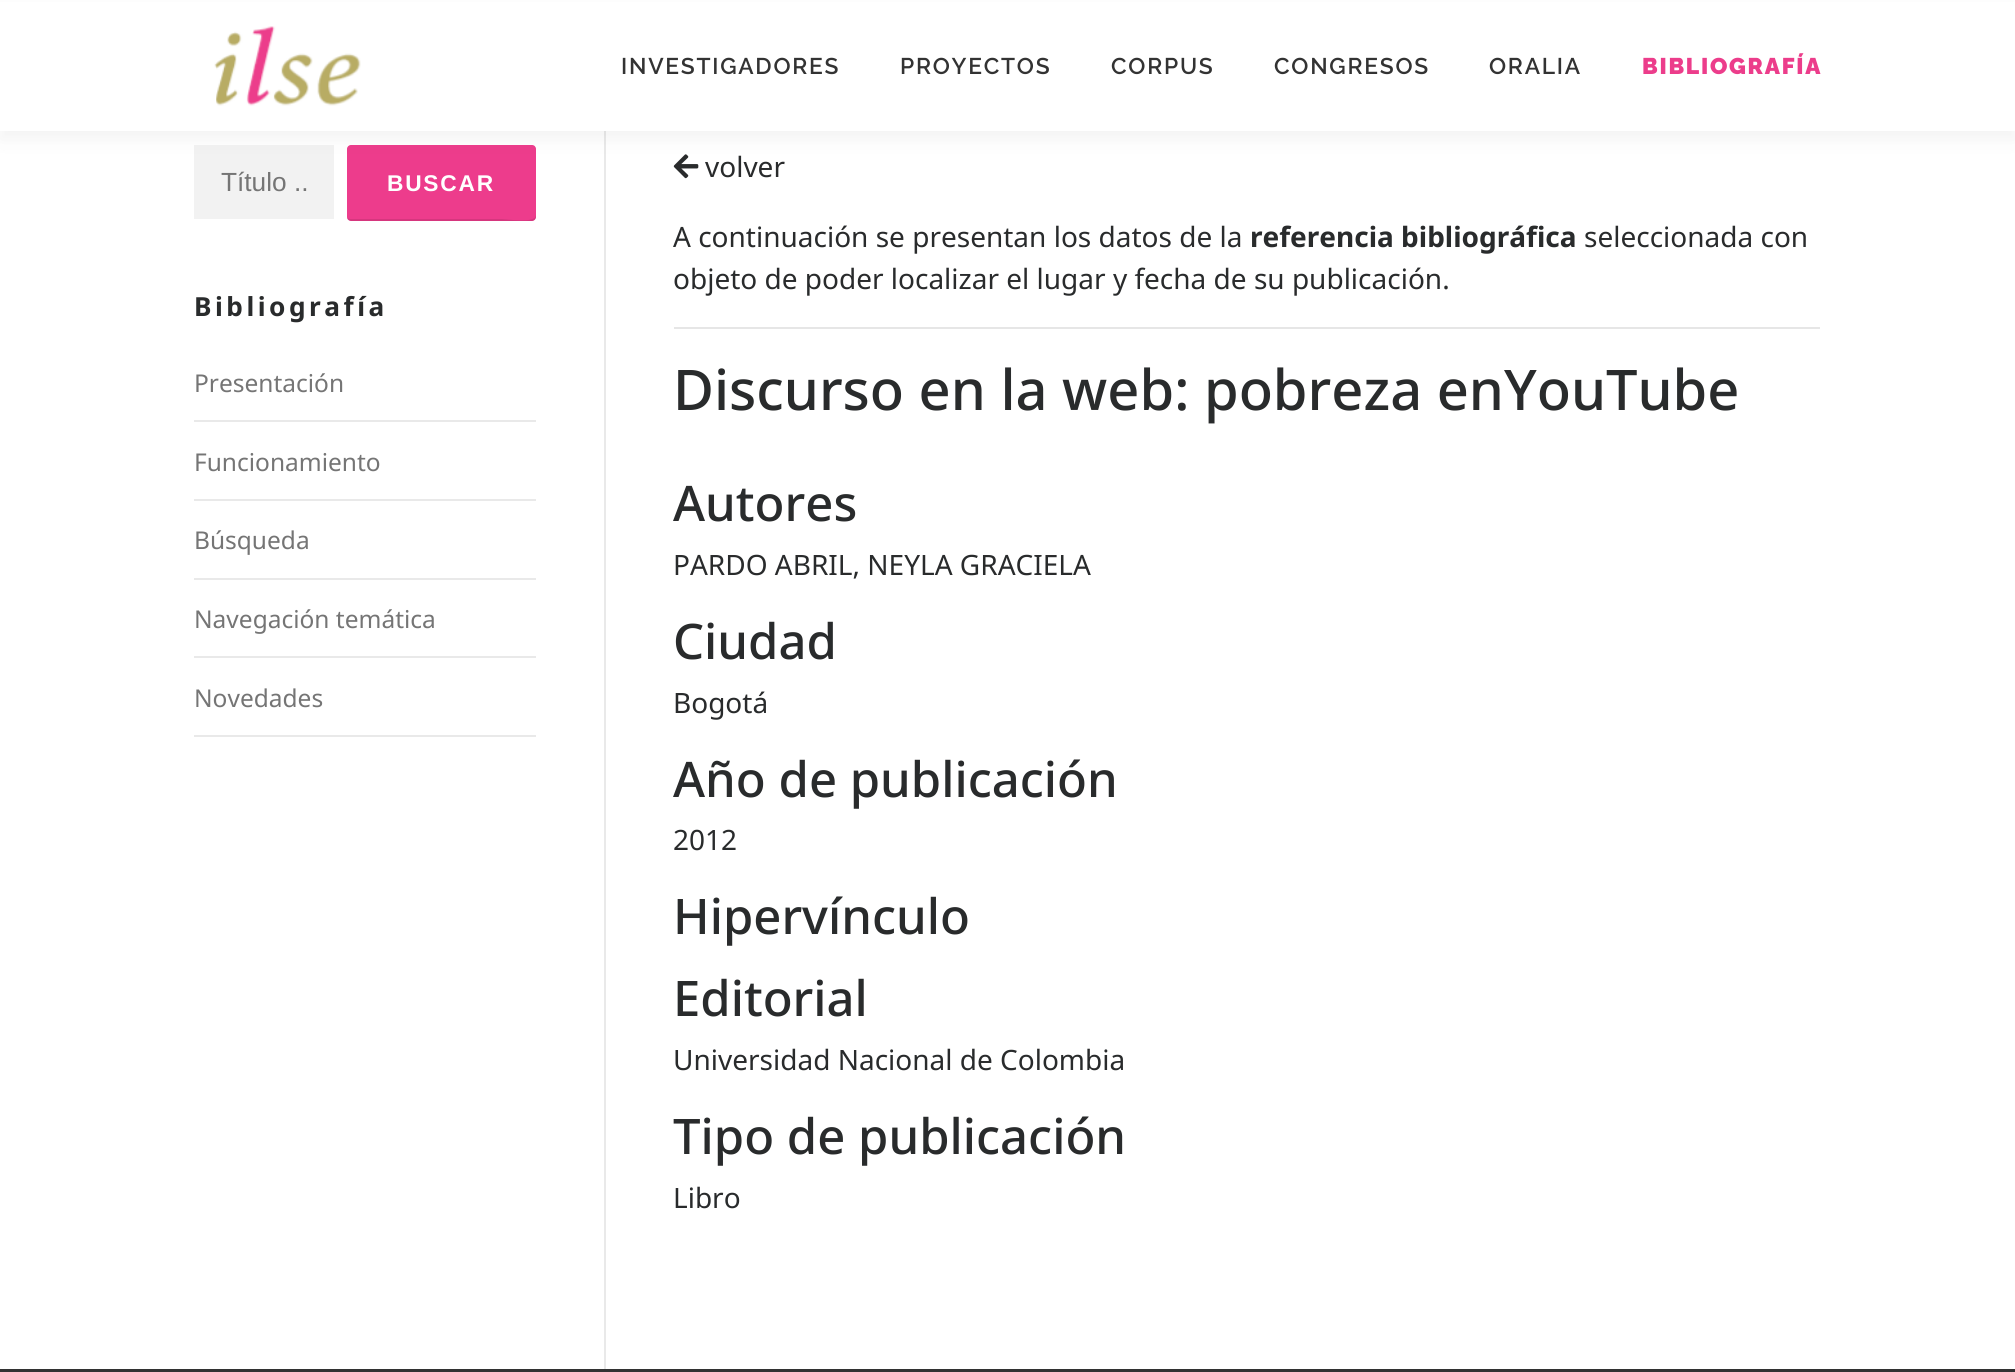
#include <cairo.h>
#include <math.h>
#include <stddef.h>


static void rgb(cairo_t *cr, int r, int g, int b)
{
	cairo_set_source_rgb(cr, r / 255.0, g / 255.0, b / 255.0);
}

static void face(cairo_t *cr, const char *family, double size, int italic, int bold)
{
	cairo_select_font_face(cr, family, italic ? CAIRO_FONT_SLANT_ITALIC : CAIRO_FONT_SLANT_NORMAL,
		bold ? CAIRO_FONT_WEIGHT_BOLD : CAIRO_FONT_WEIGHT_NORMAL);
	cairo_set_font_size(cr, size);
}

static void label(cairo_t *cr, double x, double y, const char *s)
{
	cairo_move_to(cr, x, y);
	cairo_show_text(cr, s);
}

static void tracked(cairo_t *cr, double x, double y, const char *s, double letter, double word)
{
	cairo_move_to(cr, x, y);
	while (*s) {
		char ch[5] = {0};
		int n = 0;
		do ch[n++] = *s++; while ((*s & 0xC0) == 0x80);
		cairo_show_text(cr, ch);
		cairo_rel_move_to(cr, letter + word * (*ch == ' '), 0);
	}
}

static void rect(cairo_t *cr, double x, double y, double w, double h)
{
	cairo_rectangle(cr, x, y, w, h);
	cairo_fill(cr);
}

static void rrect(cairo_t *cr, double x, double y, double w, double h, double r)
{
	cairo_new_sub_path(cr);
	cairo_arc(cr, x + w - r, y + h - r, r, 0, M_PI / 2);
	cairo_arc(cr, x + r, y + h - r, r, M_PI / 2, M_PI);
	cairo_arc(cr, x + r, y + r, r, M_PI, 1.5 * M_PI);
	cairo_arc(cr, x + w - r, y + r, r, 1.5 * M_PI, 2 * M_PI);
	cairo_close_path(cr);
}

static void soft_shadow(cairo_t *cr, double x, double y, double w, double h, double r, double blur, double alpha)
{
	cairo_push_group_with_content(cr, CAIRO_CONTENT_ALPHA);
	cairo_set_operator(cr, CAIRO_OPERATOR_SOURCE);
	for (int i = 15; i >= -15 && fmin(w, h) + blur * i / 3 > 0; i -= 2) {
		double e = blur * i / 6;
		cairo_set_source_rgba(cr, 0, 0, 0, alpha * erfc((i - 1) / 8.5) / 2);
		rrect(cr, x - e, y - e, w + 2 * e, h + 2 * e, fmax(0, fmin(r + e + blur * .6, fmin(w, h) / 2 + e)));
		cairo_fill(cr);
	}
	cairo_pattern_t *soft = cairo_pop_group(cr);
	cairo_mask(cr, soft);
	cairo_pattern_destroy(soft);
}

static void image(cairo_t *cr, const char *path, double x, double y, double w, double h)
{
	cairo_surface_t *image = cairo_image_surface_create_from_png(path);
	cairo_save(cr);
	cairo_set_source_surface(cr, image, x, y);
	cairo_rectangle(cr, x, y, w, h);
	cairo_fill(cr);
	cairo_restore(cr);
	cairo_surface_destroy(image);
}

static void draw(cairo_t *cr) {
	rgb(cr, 255, 255, 255);
	cairo_paint(cr);
	rgb(cr, 242, 242, 242);
	rect(cr, 194, 145, 140, 74);
	rgb(cr, 237, 60, 140);
	rrect(cr, 347, 145, 189, 76, 4);
	cairo_fill(cr);
	rgb(cr, 233, 233, 233);
	rect(cr, 604, 131, 2, 1238);
	image(cr, "image1.png", 673, 154, 26, 25);
	rgb(cr, 50, 50, 50);
	soft_shadow(cr, 0, 9, 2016, 131, 0, 9, 0.06);
	rgb(cr, 255, 255, 255);
	rect(cr, 0, 2, 2015, 129);
	image(cr, "image0.png", 214, 26, 147, 80);
	face(cr, "Raleway SemiBold", 22.75, 0, 0);
	rgb(cr, 51, 51, 51);
	tracked(cr, 621, 74, "INVESTIGADORES", 1.75, 0);
	tracked(cr, 900, 74, "PROYECTOS", 1.75, 0);
	tracked(cr, 1111, 74, "CORPUS", 1.75, 0);
	tracked(cr, 1274, 74, "CONGRESOS", 1.75, 0);
	tracked(cr, 1489, 74, "ORALIA", 1.75, 0);
	face(cr, "Raleway Black", 22.75, 0, 0);
	rgb(cr, 236, 61, 139);
	tracked(cr, 1642, 74, "BIBLIOGRAFÍA", 1.75, 0);
	face(cr, "Liberation Sans", 26.25, 0, 0);
	rgb(cr, 117, 117, 117);
	label(cr, 221, 191, "Título ..");
	cairo_set_source_rgba(cr, 0, 0, 0, 0.1);
	cairo_new_path(cr);
	cairo_move_to(cr, 347, 218);
	cairo_curve_to(cr, 347, 219, 349, 221, 351, 221);
	cairo_line_to(cr, 532, 221);
	cairo_curve_to(cr, 534, 221, 536, 219, 536, 217);
	cairo_line_to(cr, 536, 215);
	cairo_curve_to(cr, 536, 224, 506, 219, 502, 219);
	cairo_line_to(cr, 350, 219);
	cairo_close_path(cr);
	cairo_fill(cr);
	face(cr, "Liberation Sans", 22.75, 0, 1);
	rgb(cr, 255, 255, 255);
	tracked(cr, 387, 191, "BUSCAR", 1.75, 0);
	face(cr, "Noto Sans", 26.25, 0, 1);
	rgb(cr, 41, 43, 44);
	tracked(cr, 194, 316, "Bibliografía", 3.5, 0);
	rgb(cr, 233, 233, 233);
	rect(cr, 194, 420, 342, 2);
	face(cr, "Noto Sans", 24.5, 0, 0);
	rgb(cr, 117, 117, 117);
	label(cr, 194, 392, "Presentación");
	rgb(cr, 233, 233, 233);
	rect(cr, 194, 499, 342, 2);
	rgb(cr, 117, 117, 117);
	label(cr, 194, 471, "Funcionamiento");
	rgb(cr, 233, 233, 233);
	rect(cr, 194, 578, 342, 2);
	rgb(cr, 117, 117, 117);
	label(cr, 194, 549, "Búsqueda");
	rgb(cr, 233, 233, 233);
	rect(cr, 194, 656, 342, 2);
	rgb(cr, 117, 117, 117);
	label(cr, 194, 628, "Navegación temática");
	rgb(cr, 233, 233, 233);
	rect(cr, 194, 735, 342, 2);
	rgb(cr, 117, 117, 117);
	label(cr, 194, 707, "Novedades");
	face(cr, "Noto Sans", 28, 0, 0);
	rgb(cr, 41, 43, 44);
	label(cr, 705, 177, "volver");
	label(cr, 673, 247, "A continuación se presentan los datos de la");
	face(cr, "Noto Sans", 28, 0, 1);
	label(cr, 1250, 247, "referencia bibliográfica");
	face(cr, "Noto Sans", 28, 0, 0);
	label(cr, 1584, 247, "seleccionada con");
	label(cr, 673, 289, "objeto de poder localizar el lugar y fecha de su publicación.");
	rgb(cr, 230, 230, 230);
	rect(cr, 674, 327, 1146, 2);
	face(cr, "Noto Sans Medium", 56, 0, 0);
	rgb(cr, 41, 43, 44);
	label(cr, 673, 410, "Discurso en la web: pobreza enYouTube");
	face(cr, "Noto Sans Medium", 49, 0, 0);
	label(cr, 673, 521, "Autores");
	face(cr, "Noto Sans", 28, 0, 0);
	label(cr, 673, 575, "PARDO ABRIL, NEYLA GRACIELA");
	face(cr, "Noto Sans Medium", 49, 0, 0);
	label(cr, 673, 659, "Ciudad");
	face(cr, "Noto Sans", 28, 0, 0);
	label(cr, 673, 713, "Bogotá");
	face(cr, "Noto Sans Medium", 49, 0, 0);
	label(cr, 673, 797, "Año de publicación");
	face(cr, "Noto Sans", 28, 0, 0);
	label(cr, 673, 850, "2012");
	face(cr, "Noto Sans Medium", 49, 0, 0);
	label(cr, 673, 934, "Hipervínculo");
	label(cr, 673, 1016, "Editorial");
	face(cr, "Noto Sans", 28, 0, 0);
	label(cr, 673, 1070, "Universidad Nacional de Colombia");
	face(cr, "Noto Sans Medium", 49, 0, 0);
	label(cr, 673, 1154, "Tipo de publicación");
	face(cr, "Noto Sans", 28, 0, 0);
	label(cr, 673, 1208, "Libro");
	rgb(cr, 50, 50, 50);
	rect(cr, 0, 1369, 2015, 3);
}

int main(void) {
	cairo_surface_t *surface = cairo_image_surface_create(CAIRO_FORMAT_RGB24, 2015, 1372);
	cairo_t *cr = cairo_create(surface);
	cairo_font_options_t *options = cairo_font_options_create();
	cairo_font_options_set_hint_metrics(options, CAIRO_HINT_METRICS_OFF);
	cairo_font_options_set_hint_style(options, CAIRO_HINT_STYLE_NONE);
	cairo_set_font_options(cr, options);
	cairo_set_miter_limit(cr, 4);
	draw(cr);
	cairo_surface_write_to_png(surface, "render.png");
	cairo_font_options_destroy(options);
	cairo_destroy(cr);
	cairo_surface_destroy(surface);
	return 0;
}
